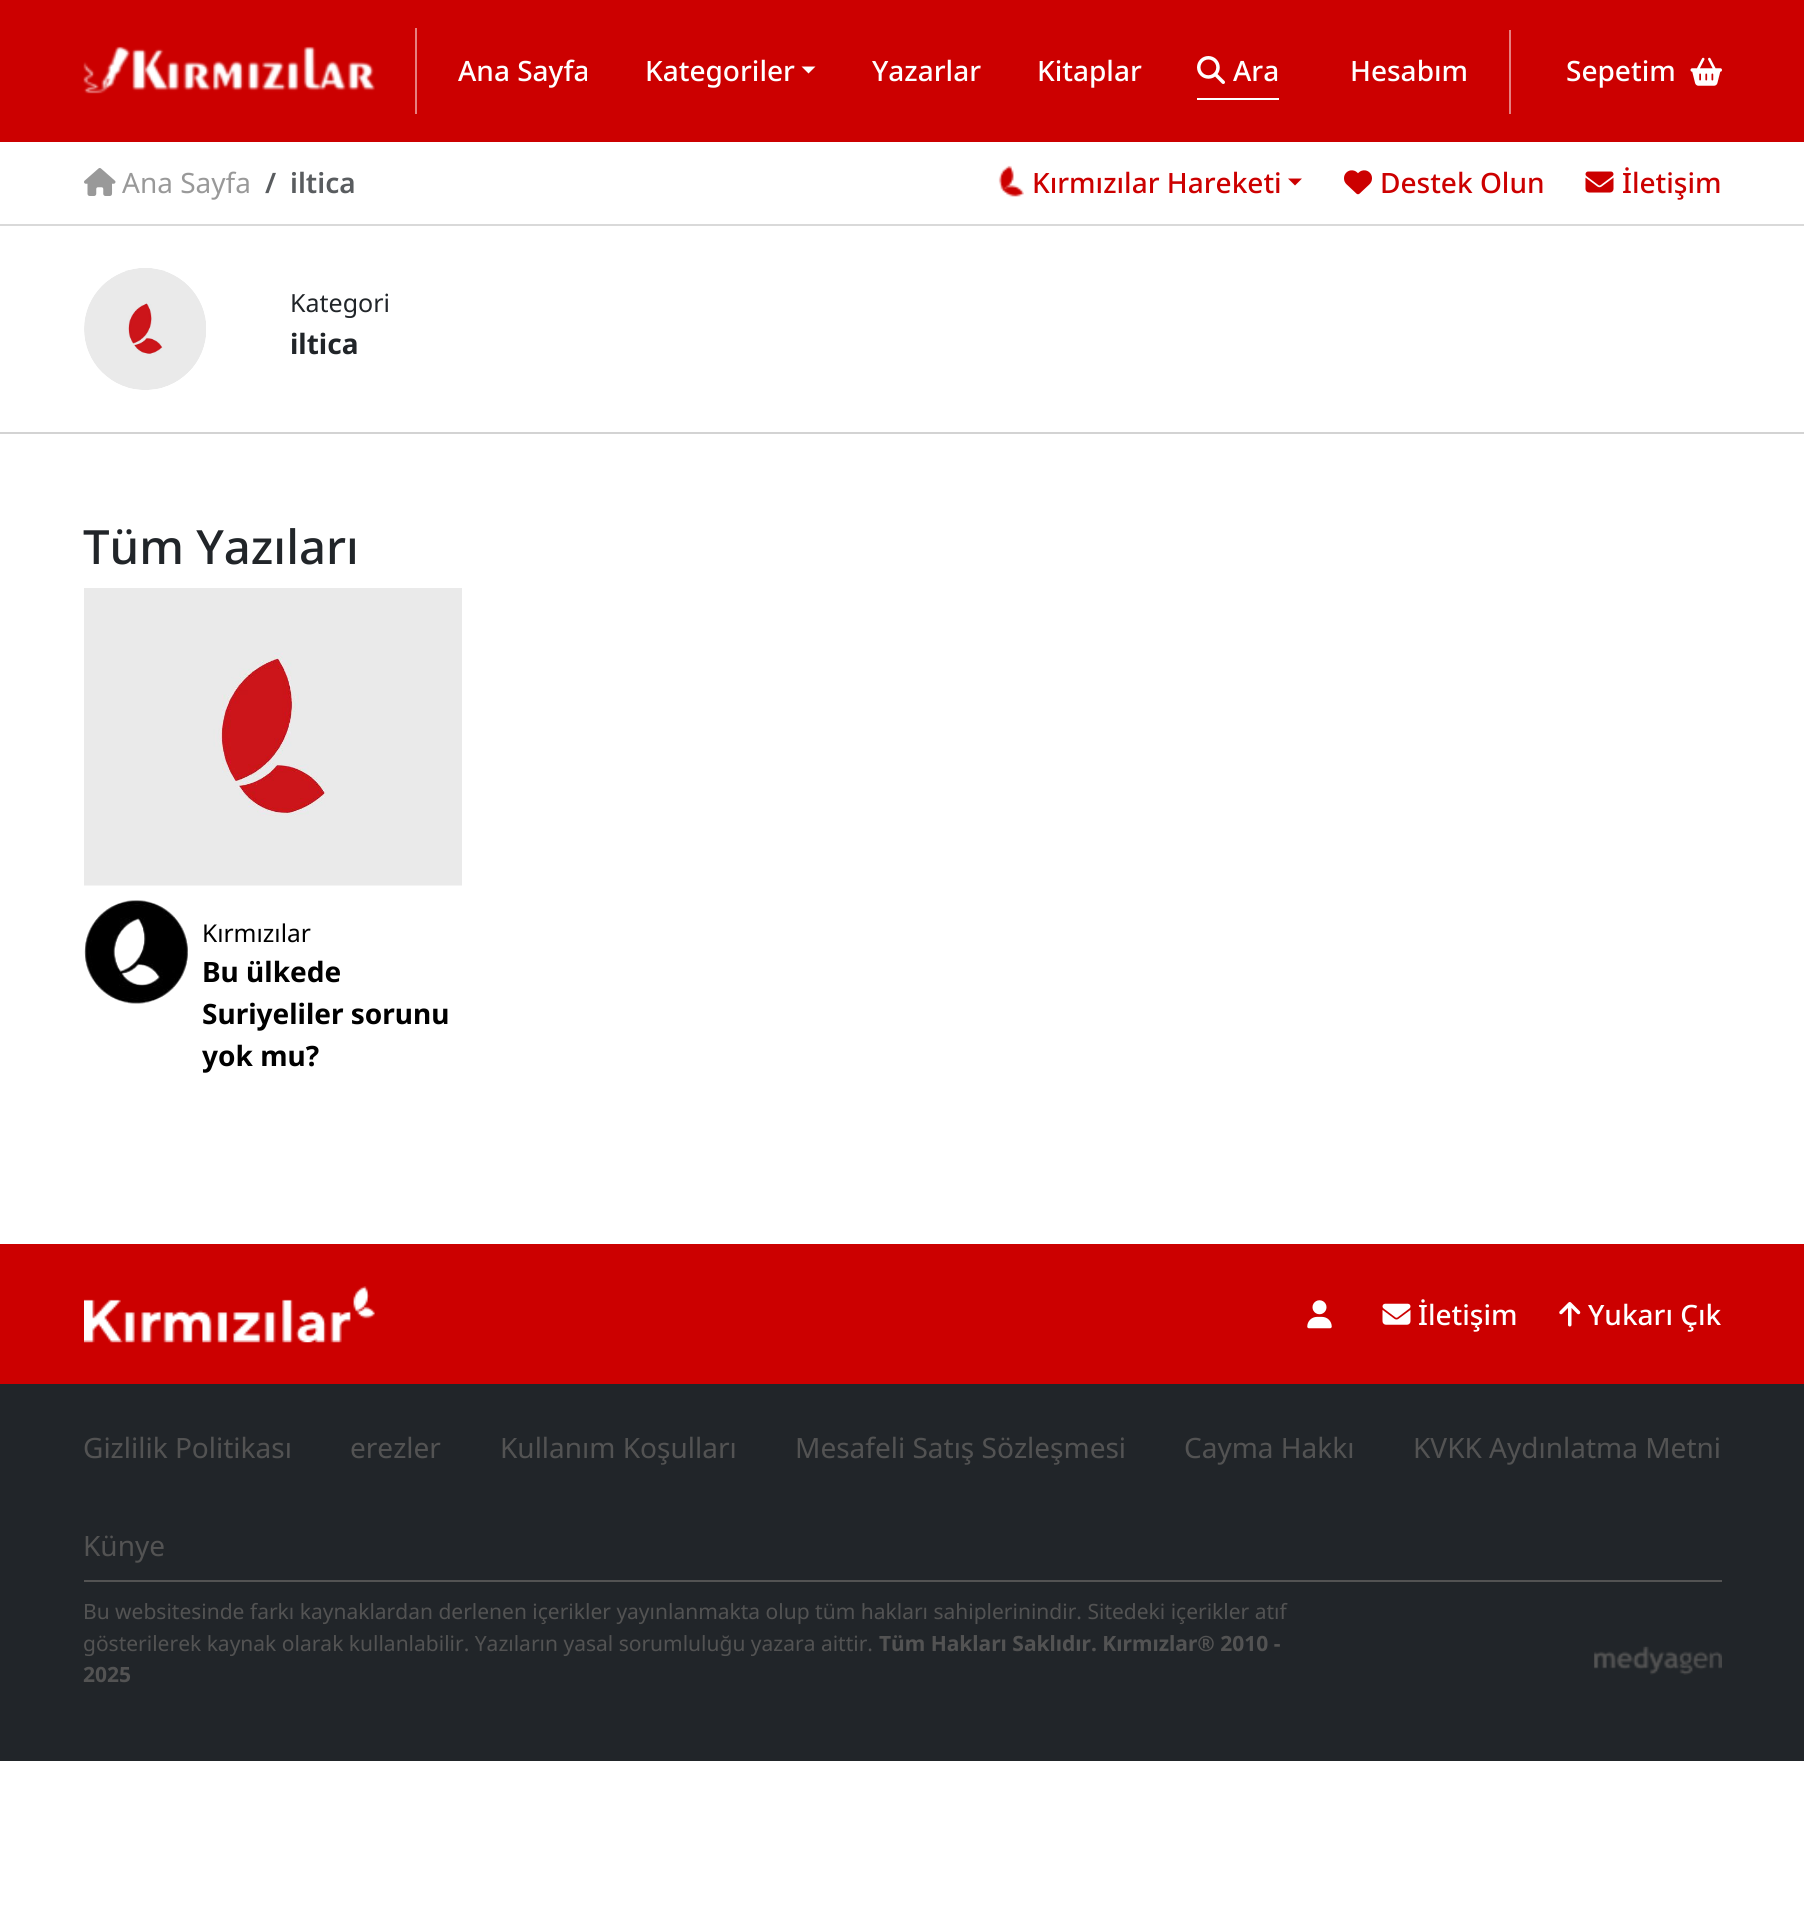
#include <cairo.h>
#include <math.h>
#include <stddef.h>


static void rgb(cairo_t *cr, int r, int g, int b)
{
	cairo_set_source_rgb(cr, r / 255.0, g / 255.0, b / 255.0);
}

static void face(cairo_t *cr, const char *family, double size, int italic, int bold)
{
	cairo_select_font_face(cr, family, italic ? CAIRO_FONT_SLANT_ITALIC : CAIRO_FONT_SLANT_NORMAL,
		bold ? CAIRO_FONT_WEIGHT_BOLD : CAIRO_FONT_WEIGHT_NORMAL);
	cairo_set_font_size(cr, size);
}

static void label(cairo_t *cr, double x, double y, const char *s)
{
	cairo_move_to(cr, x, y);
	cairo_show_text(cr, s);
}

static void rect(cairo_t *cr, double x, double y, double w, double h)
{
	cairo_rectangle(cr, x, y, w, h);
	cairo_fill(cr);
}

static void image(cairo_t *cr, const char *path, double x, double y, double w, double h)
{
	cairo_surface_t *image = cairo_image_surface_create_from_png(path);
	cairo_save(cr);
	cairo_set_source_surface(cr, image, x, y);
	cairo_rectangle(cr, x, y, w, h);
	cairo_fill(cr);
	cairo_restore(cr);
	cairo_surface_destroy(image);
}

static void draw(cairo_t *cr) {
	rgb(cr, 255, 255, 255);
	cairo_paint(cr);
	rgb(cr, 204, 0, 0);
	rect(cr, 0, 0, 1804, 142);
	image(cr, "image0.png", 83, 46, 292, 48);
	rgb(cr, 230, 128, 128);
	rect(cr, 415, 28, 2, 86);
	face(cr, "Noto Sans Medium", 28, 0, 0);
	rgb(cr, 255, 255, 255);
	label(cr, 458, 81, "Ana Sayfa");
	label(cr, 645, 81, "Kategoriler");
	cairo_new_path(cr);
	cairo_move_to(cr, 801.5, 66.5);
	cairo_line_to(cr, 815.5, 66.5);
	cairo_line_to(cr, 808.5, 73.5);
	cairo_close_path(cr);
	cairo_fill(cr);
	label(cr, 872, 81, "Yazarlar");
	label(cr, 1037, 81, "Kitaplar");
	rect(cr, 1197, 98, 82, 2);
	image(cr, "image1.png", 1197, 56, 28, 28);
	label(cr, 1233, 81, "Ara");
	label(cr, 1350, 81, "Hesabım");
	rgb(cr, 230, 128, 128);
	rect(cr, 1509, 30, 2, 84);
	rgb(cr, 255, 255, 255);
	label(cr, 1566, 81, "Sepetim");
	image(cr, "image2.png", 1690, 57, 32, 29);
	rgb(cr, 217, 217, 217);
	rect(cr, 0, 224, 1804, 2);
	image(cr, "image3.png", 84, 168, 32, 28);
	face(cr, "Noto Sans", 28, 0, 0);
	rgb(cr, 153, 153, 153);
	label(cr, 122, 193, "Ana Sayfa");
	face(cr, "Noto Sans SemiBold", 28, 0, 0);
	rgb(cr, 89, 92, 95);
	label(cr, 265, 193, "/");
	label(cr, 290, 193, "iltica");
	image(cr, "image4.png", 998, 165, 26, 32);
	face(cr, "Noto Sans Medium", 28, 0, 0);
	rgb(cr, 204, 0, 0);
	label(cr, 1032, 193, "Kırmızılar Hareketi");
	cairo_new_path(cr);
	cairo_move_to(cr, 1288, 178.5);
	cairo_line_to(cr, 1302, 178.5);
	cairo_line_to(cr, 1295, 185.5);
	cairo_close_path(cr);
	cairo_fill(cr);
	image(cr, "image5.png", 1344, 170, 28, 25);
	label(cr, 1380, 193, "Destek Olun");
	image(cr, "image6.png", 1585, 171, 29, 22);
	label(cr, 1622, 193, "İletişim");
	rgb(cr, 211, 211, 211);
	rect(cr, 0, 432, 1804, 2);
	image(cr, "image7.png", 84, 268, 122, 122);
	face(cr, "Noto Sans", 25, 0, 0);
	rgb(cr, 33, 37, 41);
	label(cr, 290, 312, "Kategori");
	face(cr, "Noto Sans", 28, 0, 1);
	label(cr, 290, 354, "iltica");
	face(cr, "Noto Sans Medium", 47.25, 0, 0);
	label(cr, 83, 564, "Tüm Yazıları");
	image(cr, "image8.png", 84, 588, 378, 298);
	image(cr, "image9.png", 84, 900, 104, 104);
	face(cr, "Noto Sans", 24.5, 0, 0);
	rgb(cr, 0, 0, 0);
	label(cr, 202, 942, "Kırmızılar");
	face(cr, "Noto Sans", 28, 0, 1);
	label(cr, 202, 982, "Bu ülkede");
	label(cr, 202, 1024, "Suriyeliler sorunu");
	label(cr, 202, 1066, "yok mu?");
	rgb(cr, 204, 0, 0);
	rect(cr, 0, 1244, 1804, 140);
	image(cr, "image10.png", 84, 1286, 291, 57);
	image(cr, "image11.png", 1307, 1300, 25, 29);
	image(cr, "image12.png", 1382, 1303, 29, 22);
	face(cr, "Noto Sans Medium", 28, 0, 0);
	rgb(cr, 255, 255, 255);
	label(cr, 1418, 1325, "İletişim");
	image(cr, "image13.png", 1559, 1302, 22, 25);
	label(cr, 1588, 1325, "Yukarı Çık");
	rgb(cr, 33, 37, 41);
	rect(cr, 0, 1384, 1804, 377);
	face(cr, "Noto Sans", 28, 0, 0);
	rgb(cr, 83, 83, 83);
	label(cr, 83, 1458, "Gizlilik Politikası");
	label(cr, 350, 1458, "erezler");
	label(cr, 500, 1458, "Kullanım Koşulları");
	label(cr, 795, 1458, "Mesafeli Satış Sözleşmesi");
	label(cr, 1184, 1458, "Cayma Hakkı");
	label(cr, 1413, 1458, "KVKK Aydınlatma Metni");
	label(cr, 83, 1556, "Künye");
	rect(cr, 84, 1580, 1638, 2);
	face(cr, "Noto Sans", 21, 0, 0);
	label(cr, 83, 1619, "Bu websitesinde farkı kaynaklardan derlenen içerikler yayınlanmakta olup tüm hakları sahiplerinindir. Sitedeki içerikler atıf");
	label(cr, 83, 1651, "gösterilerek kaynak olarak kullanlabilir. Yazıların yasal sorumluluğu yazara aittir.");
	face(cr, "Noto Sans", 21, 0, 1);
	label(cr, 879, 1651, "Tüm Hakları Saklıdır. Kırmızlar® 2010 -");
	label(cr, 83, 1682, "2025");
	image(cr, "image14.png", 1594, 1646, 128, 29);
}

int main(void) {
	cairo_surface_t *surface = cairo_image_surface_create(CAIRO_FORMAT_RGB24, 1804, 1926);
	cairo_t *cr = cairo_create(surface);
	cairo_font_options_t *options = cairo_font_options_create();
	cairo_font_options_set_hint_metrics(options, CAIRO_HINT_METRICS_OFF);
	cairo_font_options_set_hint_style(options, CAIRO_HINT_STYLE_NONE);
	cairo_set_font_options(cr, options);
	cairo_set_miter_limit(cr, 4);
	draw(cr);
	cairo_surface_write_to_png(surface, "render.png");
	cairo_font_options_destroy(options);
	cairo_destroy(cr);
	cairo_surface_destroy(surface);
	return 0;
}
